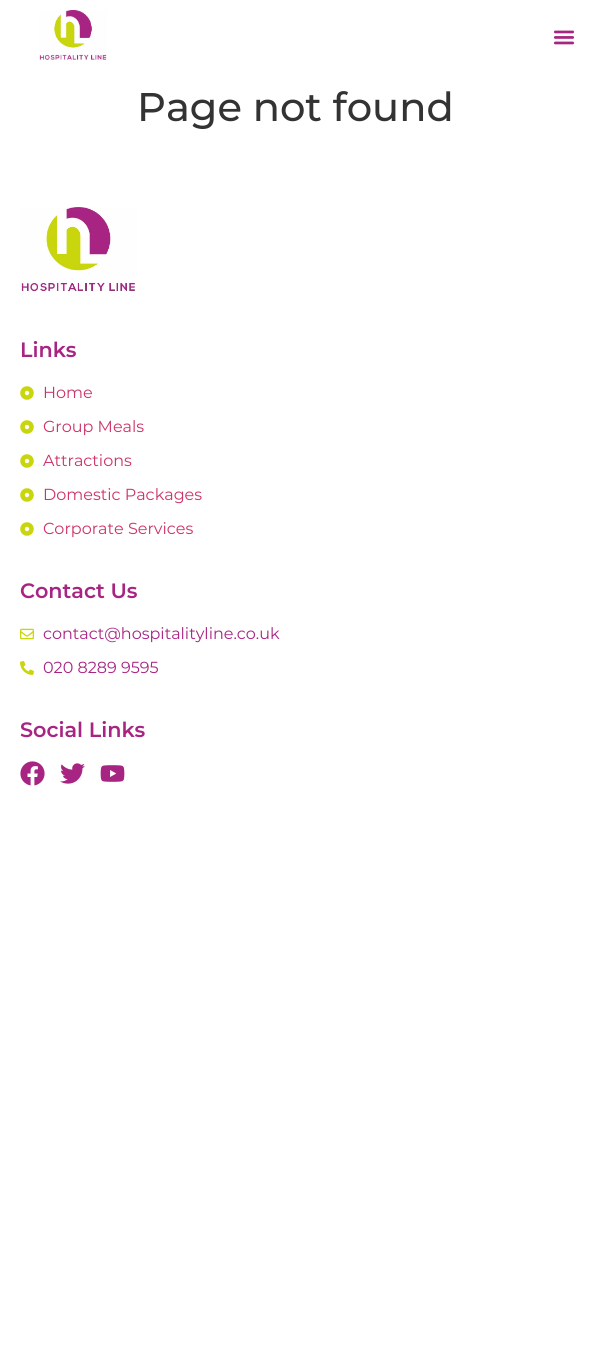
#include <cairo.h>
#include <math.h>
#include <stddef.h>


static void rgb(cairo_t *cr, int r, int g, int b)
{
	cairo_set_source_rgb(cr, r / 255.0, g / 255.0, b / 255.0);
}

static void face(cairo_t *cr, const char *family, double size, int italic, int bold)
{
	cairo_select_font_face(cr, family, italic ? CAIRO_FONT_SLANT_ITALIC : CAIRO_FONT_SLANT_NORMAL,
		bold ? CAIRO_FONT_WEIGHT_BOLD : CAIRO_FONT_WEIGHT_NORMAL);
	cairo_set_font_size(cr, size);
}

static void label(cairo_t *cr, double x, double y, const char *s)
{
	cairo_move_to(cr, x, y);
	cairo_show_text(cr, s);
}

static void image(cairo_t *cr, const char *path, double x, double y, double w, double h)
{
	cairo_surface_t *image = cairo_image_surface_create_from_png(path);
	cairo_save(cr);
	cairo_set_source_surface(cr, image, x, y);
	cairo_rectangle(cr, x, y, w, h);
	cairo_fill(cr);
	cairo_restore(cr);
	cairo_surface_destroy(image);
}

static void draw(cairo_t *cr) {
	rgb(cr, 255, 255, 255);
	cairo_paint(cr);
	image(cr, "image0.png", 39, 10, 68, 50);
	image(cr, "image1.png", 553, 30, 22, 15);
	face(cr, "Montserrat Medium", 40, 0, 0);
	rgb(cr, 51, 51, 51);
	label(cr, 137, 121, "Page not found");
	image(cr, "image2.png", 20, 207, 117, 85);
	face(cr, "Montserrat SemiBold", 20.75, 0, 0);
	rgb(cr, 168, 36, 131);
	label(cr, 20, 357, "Links");
	image(cr, "image3.png", 20, 386, 14, 14);
	face(cr, "Montserrat", 16, 0, 0);
	rgb(cr, 204, 51, 102);
	label(cr, 43, 398, "Home");
	image(cr, "image3.png", 20, 420, 14, 14);
	label(cr, 43, 432, "Group Meals");
	image(cr, "image3.png", 20, 454, 14, 14);
	label(cr, 43, 466, "Attractions");
	image(cr, "image3.png", 20, 488, 14, 14);
	label(cr, 43, 500, "Domestic Packages");
	image(cr, "image3.png", 20, 522, 14, 14);
	label(cr, 43, 534, "Corporate Services");
	face(cr, "Montserrat SemiBold", 20.75, 0, 0);
	rgb(cr, 168, 36, 131);
	label(cr, 20, 598, "Contact Us");
	image(cr, "image4.png", 20, 628, 14, 12);
	face(cr, "Montserrat", 16, 0, 0);
	label(cr, 43, 639, "contact@hospitalityline.co.uk");
	image(cr, "image5.png", 20, 661, 14, 14);
	label(cr, 43, 673, "020 8289 9595");
	face(cr, "Montserrat SemiBold", 20.75, 0, 0);
	label(cr, 20, 737, "Social Links");
	image(cr, "image6.png", 20, 761, 25, 25);
	image(cr, "image7.png", 60, 763, 25, 21);
	image(cr, "image8.png", 100, 765, 25, 17);
}

int main(void) {
	cairo_surface_t *surface = cairo_image_surface_create(CAIRO_FORMAT_RGB24, 591, 1365);
	cairo_t *cr = cairo_create(surface);
	cairo_font_options_t *options = cairo_font_options_create();
	cairo_font_options_set_hint_metrics(options, CAIRO_HINT_METRICS_OFF);
	cairo_font_options_set_hint_style(options, CAIRO_HINT_STYLE_NONE);
	cairo_set_font_options(cr, options);
	cairo_set_miter_limit(cr, 4);
	draw(cr);
	cairo_surface_write_to_png(surface, "render.png");
	cairo_font_options_destroy(options);
	cairo_destroy(cr);
	cairo_surface_destroy(surface);
	return 0;
}
